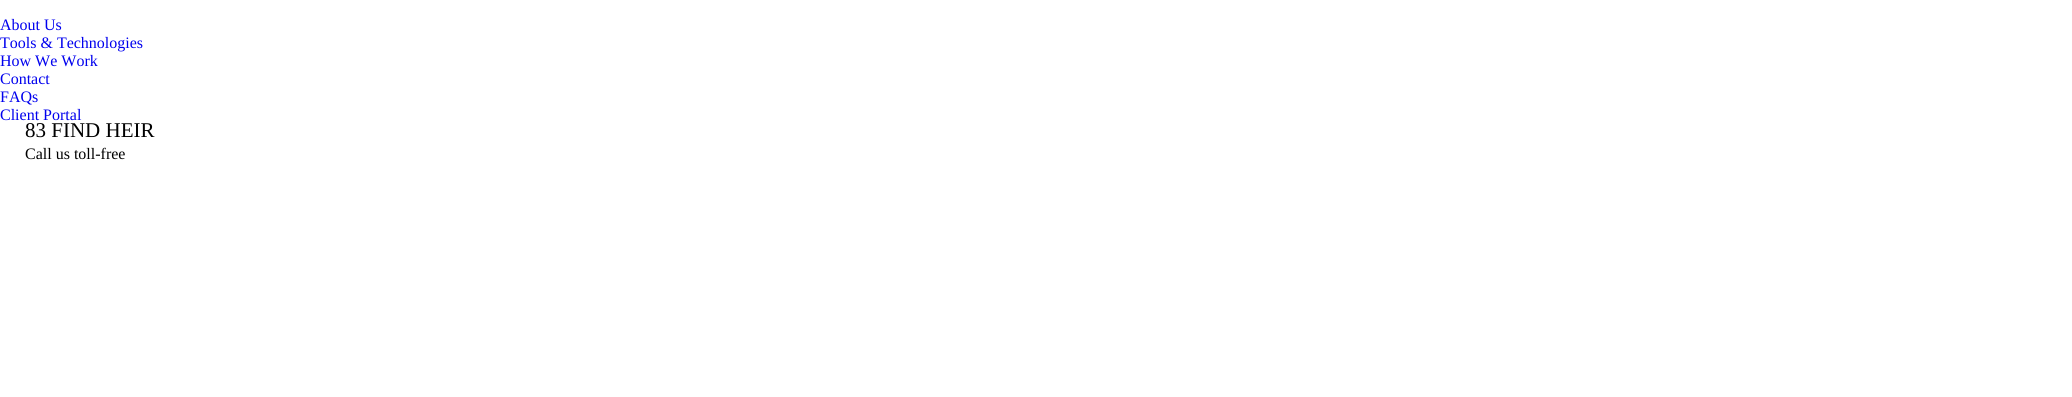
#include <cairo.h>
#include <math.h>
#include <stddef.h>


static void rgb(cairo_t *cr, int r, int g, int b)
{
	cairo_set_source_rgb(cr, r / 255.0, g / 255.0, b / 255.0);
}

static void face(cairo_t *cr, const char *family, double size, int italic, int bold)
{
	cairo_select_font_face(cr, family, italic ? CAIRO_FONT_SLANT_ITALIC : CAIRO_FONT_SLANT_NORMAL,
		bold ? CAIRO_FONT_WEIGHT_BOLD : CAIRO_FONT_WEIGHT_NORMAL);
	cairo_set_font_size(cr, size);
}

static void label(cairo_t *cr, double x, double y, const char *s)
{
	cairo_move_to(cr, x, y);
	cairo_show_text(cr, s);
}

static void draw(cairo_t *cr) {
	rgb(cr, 255, 255, 255);
	cairo_paint(cr);
	face(cr, "Liberation Serif", 16, 0, 0);
	rgb(cr, 0, 0, 238);
	label(cr, 0, 30, "About Us");
	label(cr, 0, 48, "Tools & Technologies");
	label(cr, 0, 66, "How We Work");
	label(cr, 0, 84, "Contact");
	label(cr, 0, 102, "FAQs");
	label(cr, 0, 120, "Client Portal");
	face(cr, "Liberation Serif", 21, 0, 0);
	rgb(cr, 0, 0, 0);
	label(cr, 25, 137, "83 FIND HEIR");
	face(cr, "Liberation Serif", 16, 0, 0);
	label(cr, 25, 159, "Call us toll-free");
}

int main(void) {
	cairo_surface_t *surface = cairo_image_surface_create(CAIRO_FORMAT_RGB24, 2072, 397);
	cairo_t *cr = cairo_create(surface);
	cairo_font_options_t *options = cairo_font_options_create();
	cairo_font_options_set_hint_metrics(options, CAIRO_HINT_METRICS_OFF);
	cairo_font_options_set_hint_style(options, CAIRO_HINT_STYLE_NONE);
	cairo_set_font_options(cr, options);
	cairo_set_miter_limit(cr, 4);
	draw(cr);
	cairo_surface_write_to_png(surface, "render.png");
	cairo_font_options_destroy(options);
	cairo_destroy(cr);
	cairo_surface_destroy(surface);
	return 0;
}
